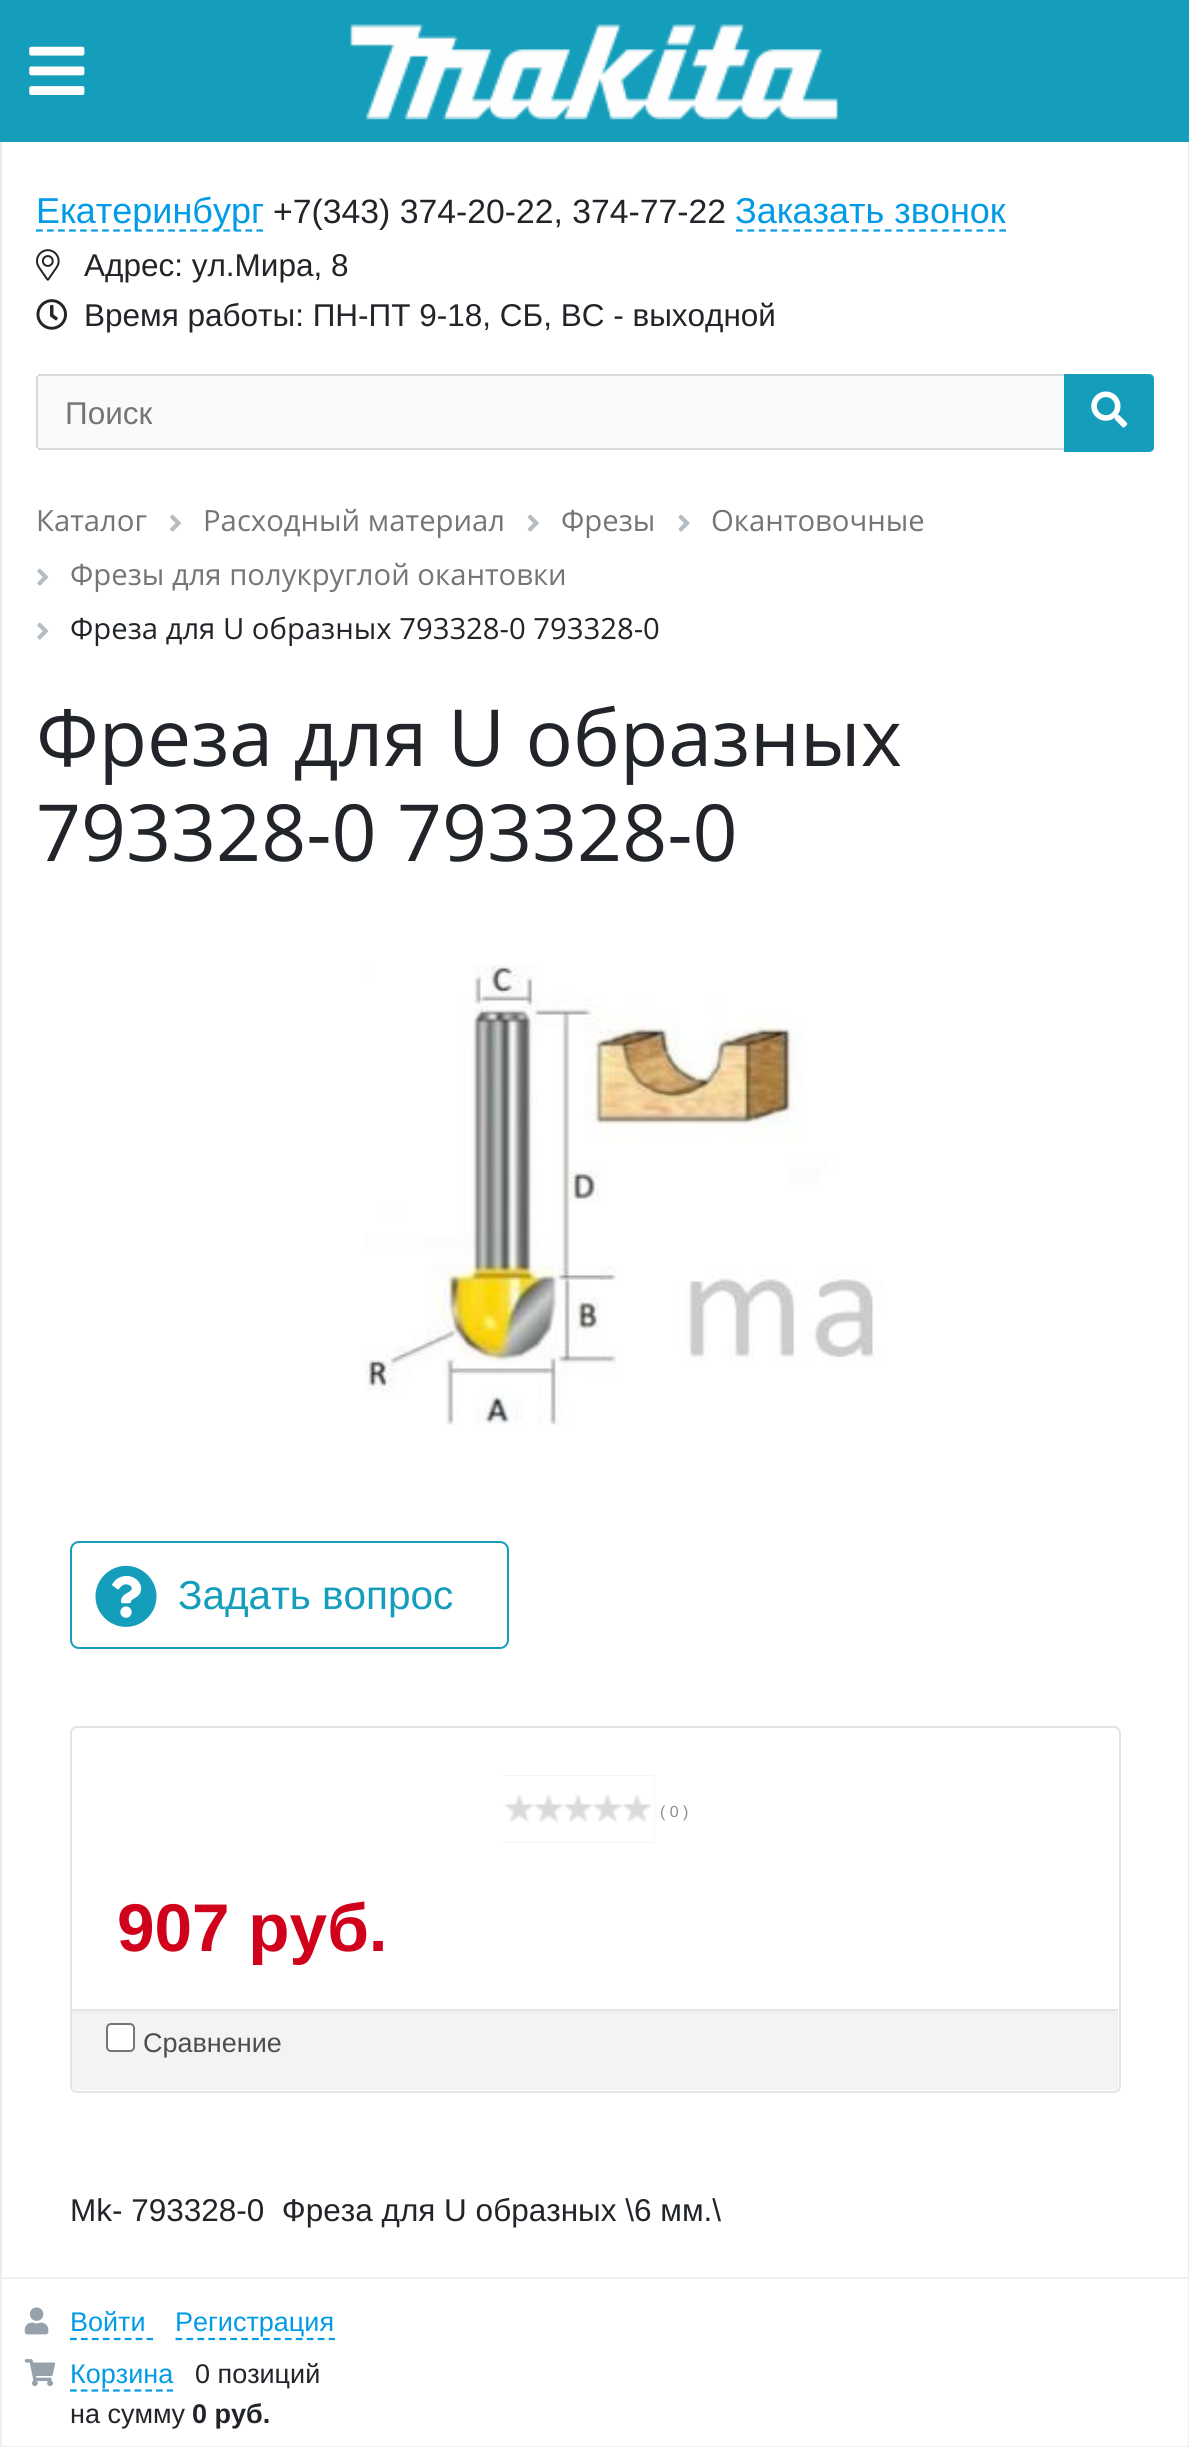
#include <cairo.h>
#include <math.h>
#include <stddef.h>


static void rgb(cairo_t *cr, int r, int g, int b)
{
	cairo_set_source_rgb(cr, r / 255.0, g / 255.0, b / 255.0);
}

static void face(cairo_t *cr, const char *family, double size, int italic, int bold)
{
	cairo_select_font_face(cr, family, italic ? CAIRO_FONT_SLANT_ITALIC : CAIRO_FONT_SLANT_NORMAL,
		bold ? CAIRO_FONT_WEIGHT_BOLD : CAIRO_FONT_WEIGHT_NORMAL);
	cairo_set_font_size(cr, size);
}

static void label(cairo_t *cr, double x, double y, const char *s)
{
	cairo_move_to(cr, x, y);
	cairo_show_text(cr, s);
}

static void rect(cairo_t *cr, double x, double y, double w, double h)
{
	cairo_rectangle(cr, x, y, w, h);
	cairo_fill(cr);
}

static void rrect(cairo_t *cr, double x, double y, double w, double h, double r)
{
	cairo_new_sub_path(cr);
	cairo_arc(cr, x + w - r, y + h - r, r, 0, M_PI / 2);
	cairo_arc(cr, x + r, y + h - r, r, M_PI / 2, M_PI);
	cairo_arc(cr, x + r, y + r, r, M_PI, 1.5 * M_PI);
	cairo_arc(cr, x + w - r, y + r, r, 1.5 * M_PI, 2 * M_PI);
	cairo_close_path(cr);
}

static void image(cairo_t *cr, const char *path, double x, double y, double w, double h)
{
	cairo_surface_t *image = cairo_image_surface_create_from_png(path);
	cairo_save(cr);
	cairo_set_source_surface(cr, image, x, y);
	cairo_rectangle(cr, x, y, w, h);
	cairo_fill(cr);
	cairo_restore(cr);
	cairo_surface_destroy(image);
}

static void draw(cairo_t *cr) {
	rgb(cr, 255, 255, 255);
	cairo_paint(cr);
	rgb(cr, 21, 158, 187);
	rect(cr, 0, 0, 1189, 142);
	image(cr, "image0.png", 29, 46, 56, 49);
	rgb(cr, 234, 235, 236);
	rect(cr, 1188, 142, 1, 2136);
	rect(cr, 0, 142, 2, 2305);
	image(cr, "image1.png", 350, 24, 488, 96);
	cairo_new_path(cr);
	cairo_move_to(cr, 36, 230.5);
	cairo_line_to(cr, 263, 230.5);
	rgb(cr, 3, 155, 229);
	cairo_set_line_width(cr, 2.2);
	cairo_set_dash(cr, (double[]){6.75, 4.27}, 2, 0);
	cairo_stroke(cr);
	face(cr, "Liberation Sans", 36, 0, 0);
	label(cr, 36, 223, "Екатеринбург");
	face(cr, "Liberation Sans", 33.75, 0, 0);
	rgb(cr, 33, 37, 41);
	label(cr, 273, 223, "+7(343) 374-20-22, 374-77-22");
	face(cr, "Liberation Sans", 36, 0, 0);
	rgb(cr, 3, 155, 229);
	label(cr, 735, 223, "Заказать звонок");
	cairo_new_path(cr);
	cairo_move_to(cr, 736, 230.5);
	cairo_line_to(cr, 1006, 230.5);
	cairo_set_dash(cr, (double[]){6.75, 4.7}, 2, 0);
	cairo_stroke(cr);
	image(cr, "image2.png", 36, 249, 24, 32);
	face(cr, "Liberation Sans", 31.5, 0, 0);
	rgb(cr, 33, 37, 41);
	label(cr, 84, 276, "Адрес: ул.Мира, 8");
	image(cr, "image3.png", 36, 299, 31, 31);
	label(cr, 84, 326, "Время работы: ПН-ПТ 9-18, СБ, ВС - выходной");
	rgb(cr, 248, 250, 252);
	cairo_new_path(cr);
	cairo_move_to(cr, 41, 374);
	cairo_line_to(cr, 1064, 374);
	cairo_line_to(cr, 1064, 450);
	cairo_line_to(cr, 41, 450);
	cairo_curve_to(cr, 38, 450, 36, 448, 36, 445);
	cairo_line_to(cr, 36, 379);
	cairo_curve_to(cr, 36, 376, 38, 374, 41, 374);
	cairo_close_path(cr);
	cairo_fill(cr);
	rgb(cr, 213, 218, 220);
	rect(cr, 38, 374, 1026, 2);
	rect(cr, 38, 448, 1026, 2);
	rect(cr, 36, 376, 2, 72);
	rgb(cr, 117, 117, 117);
	label(cr, 65, 424, "Поиск");
	rgb(cr, 21, 158, 187);
	cairo_new_path(cr);
	cairo_move_to(cr, 1064, 374);
	cairo_line_to(cr, 1149, 374);
	cairo_curve_to(cr, 1152, 374, 1154, 376, 1154, 379);
	cairo_line_to(cr, 1154, 447);
	cairo_curve_to(cr, 1154, 450, 1152, 452, 1149, 452);
	cairo_line_to(cr, 1064, 452);
	cairo_close_path(cr);
	cairo_fill(cr);
	image(cr, "image4.png", 1091, 391, 37, 37);
	face(cr, "Open Sans", 29.25, 0, 0);
	rgb(cr, 117, 117, 117);
	label(cr, 36, 531, "Каталог");
	image(cr, "image5.png", 170, 514, 11, 18);
	label(cr, 203, 531, "Расходный материал");
	image(cr, "image6.png", 527, 514, 12, 18);
	label(cr, 561, 531, "Фрезы");
	image(cr, "image7.png", 678, 514, 12, 18);
	label(cr, 711, 531, "Окантовочные");
	image(cr, "image8.png", 37, 568, 12, 18);
	label(cr, 70, 585, "Фрезы для полукруглой окантовки");
	image(cr, "image8.png", 37, 622, 12, 18);
	rgb(cr, 33, 37, 41);
	label(cr, 70, 639, "Фреза для U образных 793328-0 793328-0");
	face(cr, "Open Sans", 78.75, 0, 0);
	label(cr, 36, 766, "Фреза для U образных");
	label(cr, 36, 861, "793328-0 793328-0");
	image(cr, "image9.png", 363, 964, 521, 461);
	rrect(cr, 71, 1542, 437, 106, 8);
	rgb(cr, 21, 158, 187);
	cairo_set_line_width(cr, 2);
	cairo_set_dash(cr, NULL, 0, 0);
	cairo_stroke(cr);
	image(cr, "image10.png", 95, 1565, 62, 62);
	face(cr, "Liberation Sans", 40.5, 0, 0);
	label(cr, 178, 1609, "Задать вопрос");
	rrect(cr, 71, 1727, 1049, 365, 6);
	rgb(cr, 228, 228, 228);
	cairo_stroke(cr);
	rgb(cr, 218, 218, 218);
	rect(cr, 502, 1775, 153, 68);
	image(cr, "image11.png", 502, 1775, 153, 68);
	face(cr, "Liberation Sans", 16, 0, 0);
	rgb(cr, 141, 141, 141);
	label(cr, 660, 1817, "( 0 )");
	face(cr, "Liberation Sans", 67.5, 0, 1);
	rgb(cr, 208, 2, 27);
	label(cr, 117, 1951, "907 руб.");
	rgb(cr, 243, 243, 243);
	rect(cr, 72, 2011, 1046, 79);
	rgb(cr, 238, 238, 238);
	rect(cr, 72, 2012, 1046, 2);
	rgb(cr, 228, 228, 228);
	rect(cr, 72, 2009, 1046, 2);
	rgb(cr, 255, 255, 255);
	rrect(cr, 107, 2024, 27, 27, 4);
	cairo_fill_preserve(cr);
	rgb(cr, 118, 118, 118);
	cairo_stroke(cr);
	face(cr, "Liberation Sans", 27, 0, 0);
	rgb(cr, 78, 78, 78);
	label(cr, 143, 2052, "Сравнение");
	face(cr, "Liberation Sans", 31.5, 0, 0);
	rgb(cr, 33, 37, 41);
	label(cr, 70, 2221, "Mk- 793328-0  Фреза для U образных \\6 мм.\\");
	rgb(cr, 255, 255, 255);
	rrect(cr, 1, 2278, 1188, 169, 1);
	cairo_fill_preserve(cr);
	rgb(cr, 240, 240, 240);
	cairo_stroke(cr);
	image(cr, "image12.png", 24, 2307, 25, 28);
	face(cr, "Liberation Sans", 27, 0, 0);
	rgb(cr, 3, 155, 229);
	label(cr, 70, 2331, "Войти");
	cairo_new_path(cr);
	cairo_move_to(cr, 70, 2339);
	cairo_line_to(cr, 153, 2339);
	cairo_set_line_width(cr, 2.2);
	cairo_set_dash(cr, (double[]){6.75, 4.19}, 2, 0);
	cairo_stroke(cr);
	label(cr, 175, 2331, "Регистрация");
	cairo_new_path(cr);
	cairo_move_to(cr, 175.5, 2339);
	cairo_line_to(cr, 335, 2339);
	cairo_stroke(cr);
	image(cr, "image13.png", 24, 2359, 32, 28);
	label(cr, 70, 2383, "Корзина");
	cairo_new_path(cr);
	cairo_move_to(cr, 70, 2390.5);
	cairo_line_to(cr, 173, 2390.5);
	cairo_set_dash(cr, (double[]){6.75, 4}, 2, 0);
	cairo_stroke(cr);
	rgb(cr, 33, 37, 41);
	label(cr, 195, 2383, "0 позиций");
	label(cr, 70, 2423, "на сумму");
	face(cr, "Liberation Sans", 27, 0, 1);
	label(cr, 192, 2423, "0 руб.");
}

int main(void) {
	cairo_surface_t *surface = cairo_image_surface_create(CAIRO_FORMAT_RGB24, 1189, 2447);
	cairo_t *cr = cairo_create(surface);
	cairo_font_options_t *options = cairo_font_options_create();
	cairo_font_options_set_hint_metrics(options, CAIRO_HINT_METRICS_OFF);
	cairo_font_options_set_hint_style(options, CAIRO_HINT_STYLE_NONE);
	cairo_set_font_options(cr, options);
	cairo_set_miter_limit(cr, 4);
	draw(cr);
	cairo_surface_write_to_png(surface, "render.png");
	cairo_font_options_destroy(options);
	cairo_destroy(cr);
	cairo_surface_destroy(surface);
	return 0;
}
